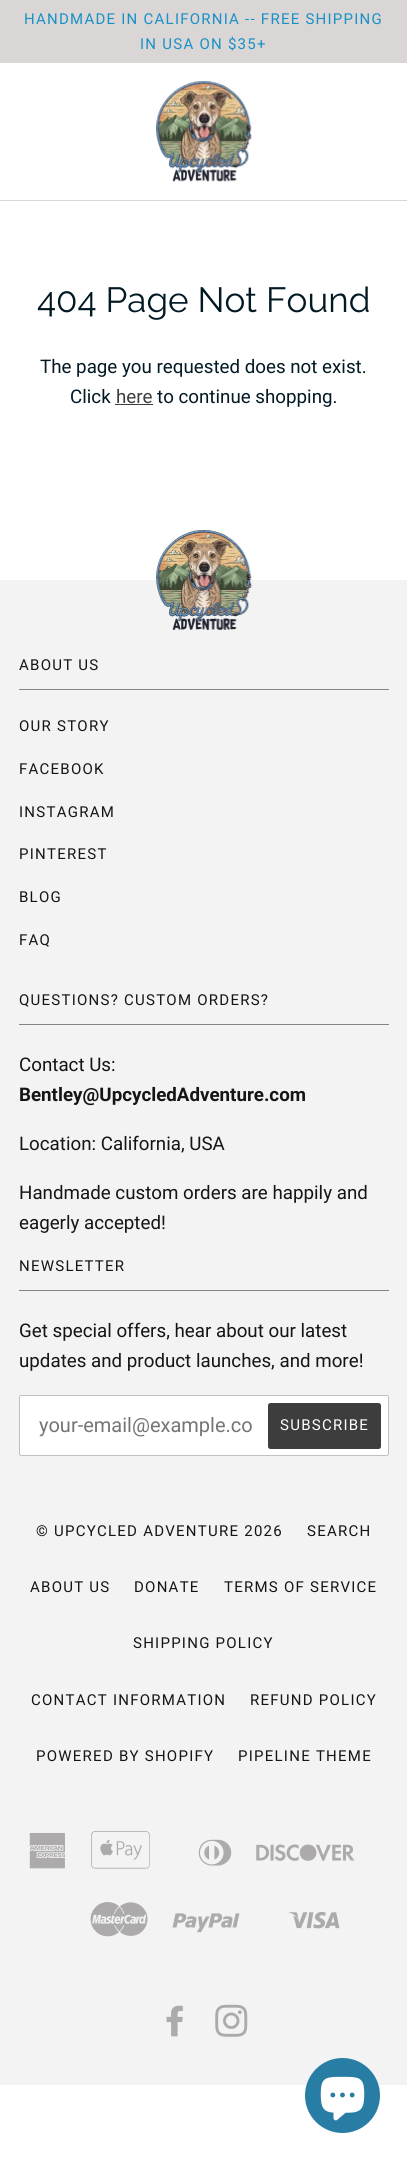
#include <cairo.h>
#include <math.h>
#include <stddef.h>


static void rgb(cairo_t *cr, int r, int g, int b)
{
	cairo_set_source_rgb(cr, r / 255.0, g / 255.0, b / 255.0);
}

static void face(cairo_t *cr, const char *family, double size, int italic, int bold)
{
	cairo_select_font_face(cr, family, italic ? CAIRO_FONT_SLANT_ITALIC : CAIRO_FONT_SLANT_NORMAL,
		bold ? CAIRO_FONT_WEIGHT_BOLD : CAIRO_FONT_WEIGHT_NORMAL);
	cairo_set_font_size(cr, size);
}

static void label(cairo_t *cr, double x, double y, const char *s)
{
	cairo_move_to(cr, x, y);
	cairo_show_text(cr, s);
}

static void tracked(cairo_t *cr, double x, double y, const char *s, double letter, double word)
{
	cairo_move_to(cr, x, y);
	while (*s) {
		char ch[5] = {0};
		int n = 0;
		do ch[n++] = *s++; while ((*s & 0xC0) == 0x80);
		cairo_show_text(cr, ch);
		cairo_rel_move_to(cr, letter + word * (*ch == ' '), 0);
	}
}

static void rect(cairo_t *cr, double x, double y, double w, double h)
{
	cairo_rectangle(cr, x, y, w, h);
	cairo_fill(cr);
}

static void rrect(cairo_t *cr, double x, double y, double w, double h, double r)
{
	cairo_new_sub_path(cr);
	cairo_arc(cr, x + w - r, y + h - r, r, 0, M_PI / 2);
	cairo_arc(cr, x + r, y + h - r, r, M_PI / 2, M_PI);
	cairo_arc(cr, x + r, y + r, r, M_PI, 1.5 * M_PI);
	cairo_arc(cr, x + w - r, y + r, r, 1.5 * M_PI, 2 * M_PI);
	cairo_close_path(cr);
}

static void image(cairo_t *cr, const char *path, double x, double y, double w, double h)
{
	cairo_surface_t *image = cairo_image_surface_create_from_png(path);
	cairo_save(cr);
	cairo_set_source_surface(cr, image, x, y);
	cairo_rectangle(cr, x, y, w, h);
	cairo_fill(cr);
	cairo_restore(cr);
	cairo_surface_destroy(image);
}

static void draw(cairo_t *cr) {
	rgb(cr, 255, 255, 255);
	cairo_paint(cr);
	rgb(cr, 218, 214, 214);
	rect(cr, 0, 0, 407, 63);
	face(cr, "Roboto", 15, 0, 0);
	rgb(cr, 25, 144, 198);
	tracked(cr, 24, 24, "HANDMADE IN CALIFORNIA -- FREE SHIPPING", 1.25, 0);
	tracked(cr, 140, 49, "IN USA ON $35+", 1.25, 0);
	rgb(cr, 218, 214, 214);
	rect(cr, 0, 200, 407, 1);
	image(cr, "image0.png", 156, 81, 96, 101);
	face(cr, "Raleway Thin", 35, 0, 0);
	rgb(cr, 2, 25, 35);
	label(cr, 37, 312, "404 Page Not Found");
	face(cr, "Roboto", 18.75, 0, 0);
	label(cr, 40, 373, "The page you requested does not exist.");
	label(cr, 70, 403, "Click");
	rgb(cr, 61, 61, 61);
	label(cr, 116, 403, "here");
	rect(cr, 115, 404, 38, 1);
	rgb(cr, 2, 25, 35);
	label(cr, 157, 403, "to continue shopping.");
	rgb(cr, 243, 243, 243);
	rect(cr, 0, 580, 407, 1505);
	image(cr, "image1.png", 156, 530, 96, 100);
	face(cr, "Roboto", 15, 0, 0);
	rgb(cr, 21, 21, 21);
	tracked(cr, 19, 670, "ABOUT US", 1.25, 0);
	rgb(cr, 132, 132, 132);
	rect(cr, 19, 689, 370, 1);
	rgb(cr, 21, 21, 21);
	tracked(cr, 19, 731, "OUR STORY", 1.25, 0);
	tracked(cr, 19, 774, "FACEBOOK", 1.25, 0);
	tracked(cr, 19, 817, "INSTAGRAM", 1.25, 0);
	tracked(cr, 19, 859, "PINTEREST", 1.25, 0);
	tracked(cr, 19, 902, "BLOG", 1.25, 0);
	tracked(cr, 19, 945, "FAQ", 1.25, 0);
	tracked(cr, 19, 1005, "QUESTIONS? CUSTOM ORDERS?", 1.25, 0);
	rgb(cr, 132, 132, 132);
	rect(cr, 19, 1024, 370, 1);
	face(cr, "Roboto", 18.75, 0, 0);
	rgb(cr, 21, 21, 21);
	label(cr, 19, 1071, "Contact Us:");
	face(cr, "Roboto", 18.75, 0, 1);
	label(cr, 19, 1101, "Bentley@UpcycledAdventure.com");
	face(cr, "Roboto", 18.75, 0, 0);
	label(cr, 19, 1150, "Location: California, USA");
	label(cr, 19, 1199, "Handmade custom orders are happily and");
	label(cr, 19, 1229, "eagerly accepted!");
	face(cr, "Roboto", 15, 0, 0);
	tracked(cr, 19, 1271, "NEWSLETTER", 1.25, 0);
	rgb(cr, 132, 132, 132);
	rect(cr, 19, 1290, 370, 1);
	face(cr, "Roboto", 18.75, 0, 0);
	rgb(cr, 21, 21, 21);
	label(cr, 19, 1337, "Get special offers, hear about our latest");
	label(cr, 19, 1367, "updates and product launches, and more!");
	rgb(cr, 255, 255, 255);
	rrect(cr, 19.5, 1395.5, 369, 60, 2);
	cairo_fill_preserve(cr);
	rgb(cr, 192, 192, 192);
	cairo_set_line_width(cr, 1);
	cairo_stroke(cr);
	face(cr, "Roboto", 20, 0, 0);
	rgb(cr, 117, 117, 117);
	label(cr, 39, 1432, "your-email@example.co");
	rgb(cr, 61, 61, 61);
	rrect(cr, 268, 1403, 113, 46, 2.5);
	cairo_fill(cr);
	face(cr, "Roboto", 15, 0, 0);
	rgb(cr, 255, 255, 255);
	tracked(cr, 280, 1430, "SUBSCRIBE", 1.25, 0);
	rgb(cr, 21, 21, 21);
	tracked(cr, 36, 1536, "© UPCYCLED ADVENTURE 2026", 1.25, 0);
	tracked(cr, 307, 1536, "SEARCH", 1.25, 0);
	tracked(cr, 30, 1592, "ABOUT US", 1.25, 0);
	tracked(cr, 134, 1592, "DONATE", 1.25, 0);
	tracked(cr, 224, 1592, "TERMS OF SERVICE", 1.25, 0);
	tracked(cr, 133, 1648, "SHIPPING POLICY", 1.25, 0);
	tracked(cr, 31, 1705, "CONTACT INFORMATION", 1.25, 0);
	tracked(cr, 250, 1705, "REFUND POLICY", 1.25, 0);
	tracked(cr, 36, 1761, "POWERED BY SHOPIFY", 1.25, 0);
	tracked(cr, 238, 1761, "PIPELINE THEME", 1.25, 0);
	image(cr, "image2.png", 29, 1833, 37, 36);
	image(cr, "image3.png", 91, 1831, 59, 38);
	image(cr, "image4.png", 198, 1839, 34, 27);
	image(cr, "image5.png", 256, 1844, 99, 17);
	image(cr, "image6.png", 90, 1902, 58, 35);
	image(cr, "image7.png", 172, 1913, 68, 20);
	image(cr, "image8.png", 288, 1912, 52, 17);
	image(cr, "image9.png", 166, 2005, 17, 32);
	image(cr, "image10.png", 215, 2004, 33, 33);
	rgb(cr, 40, 125, 164);
	cairo_arc(cr, 342.5, 2095.5, 37.5, 0, 2 * M_PI);
	cairo_fill(cr);
	image(cr, "image11.png", 320, 2076, 45, 45);
}

int main(void) {
	cairo_surface_t *surface = cairo_image_surface_create(CAIRO_FORMAT_RGB24, 407, 2158);
	cairo_t *cr = cairo_create(surface);
	cairo_font_options_t *options = cairo_font_options_create();
	cairo_font_options_set_hint_metrics(options, CAIRO_HINT_METRICS_OFF);
	cairo_font_options_set_hint_style(options, CAIRO_HINT_STYLE_NONE);
	cairo_set_font_options(cr, options);
	cairo_set_miter_limit(cr, 4);
	draw(cr);
	cairo_surface_write_to_png(surface, "render.png");
	cairo_font_options_destroy(options);
	cairo_destroy(cr);
	cairo_surface_destroy(surface);
	return 0;
}
